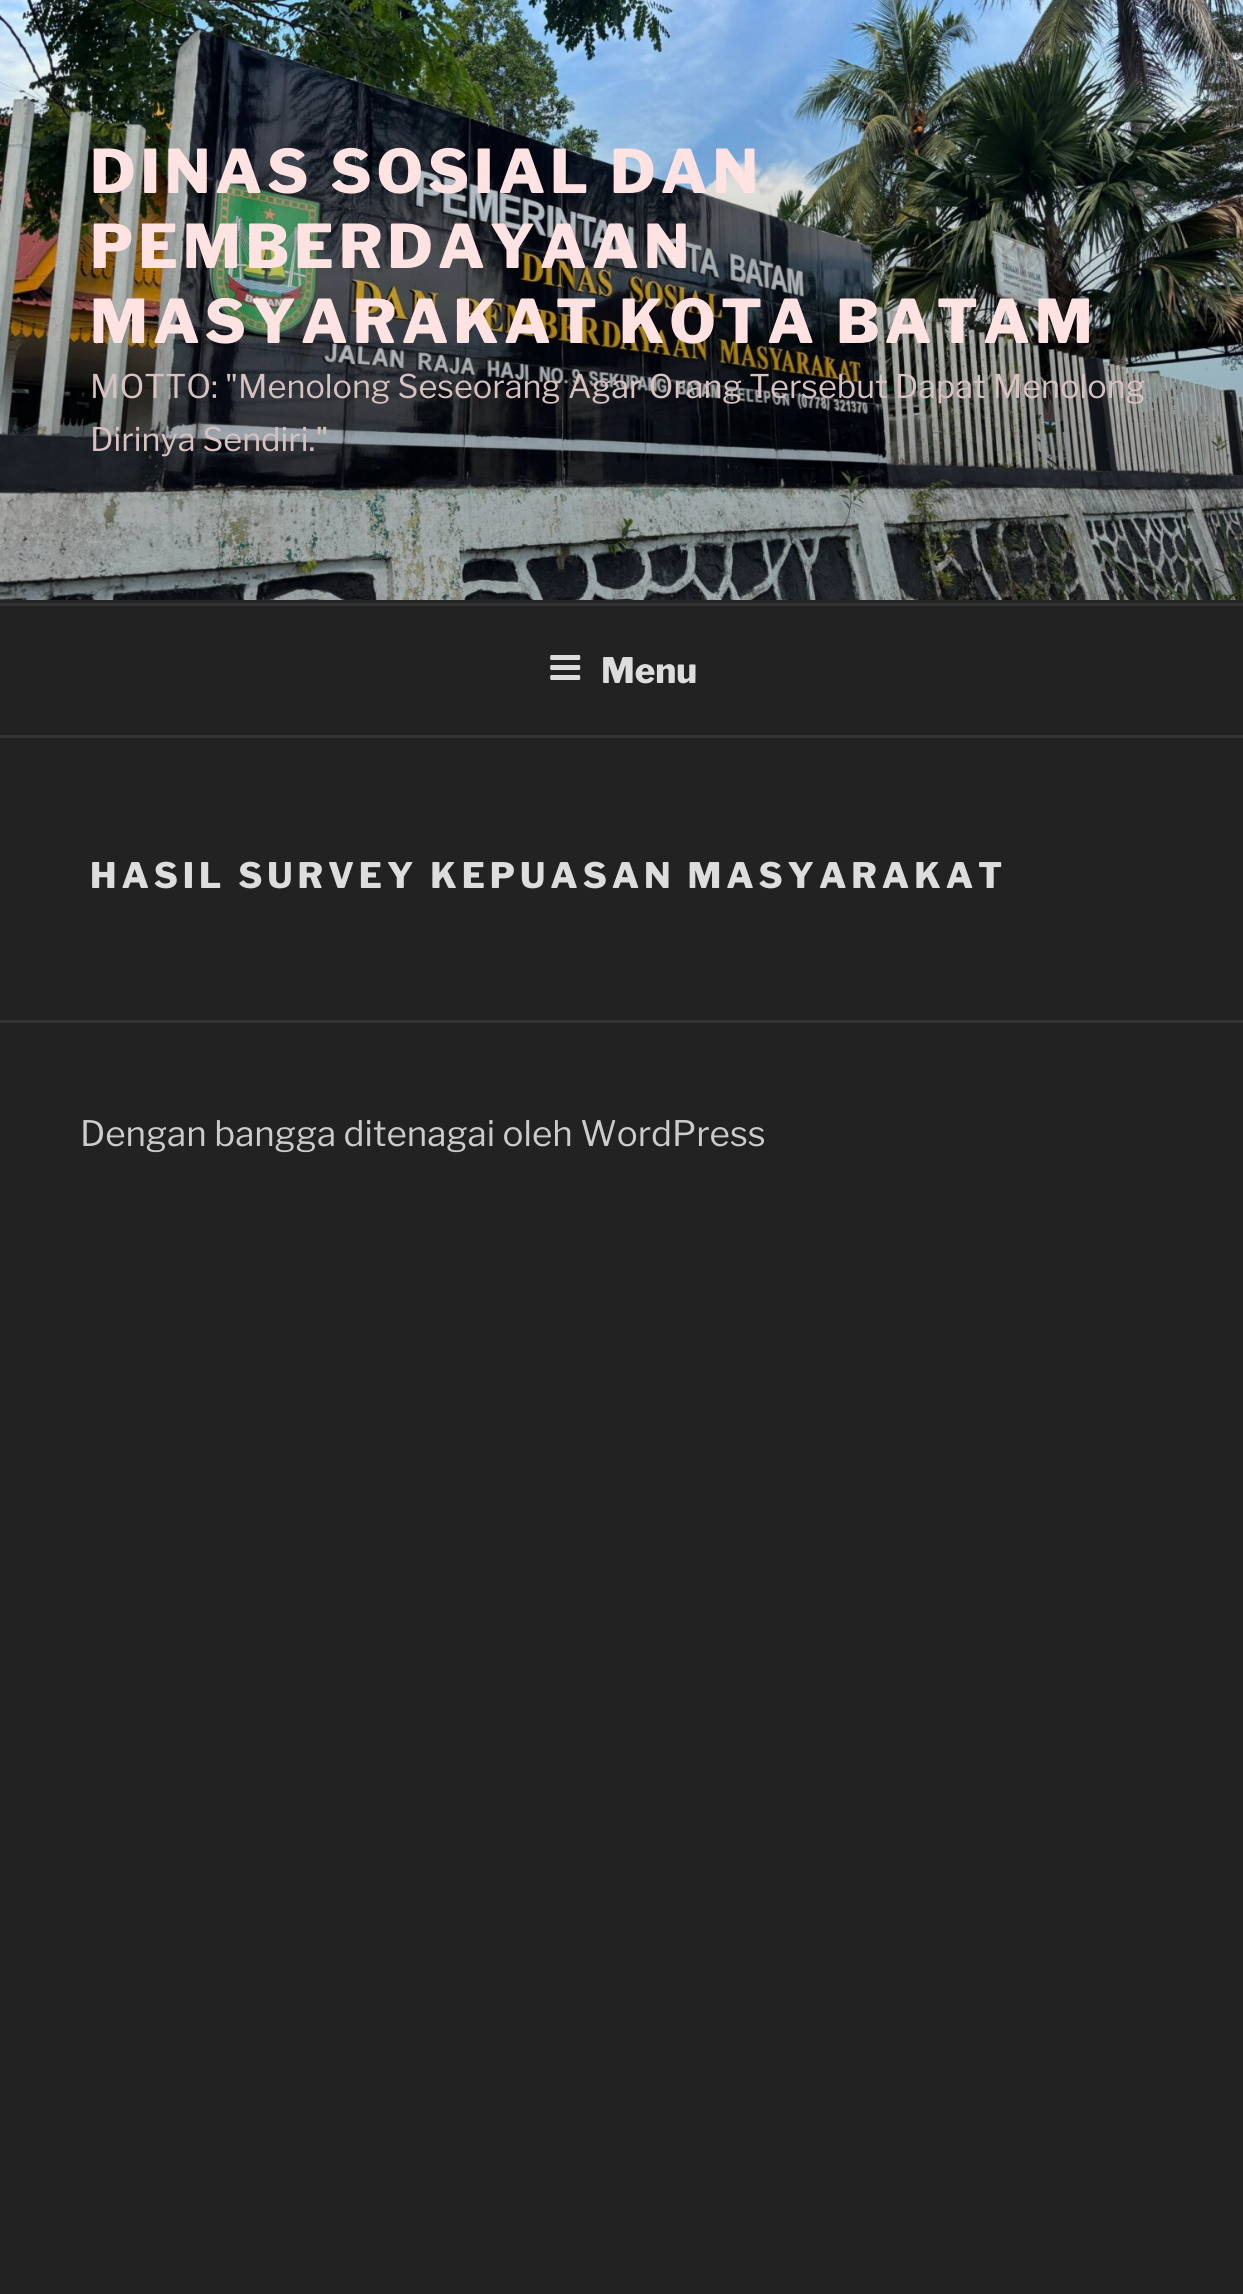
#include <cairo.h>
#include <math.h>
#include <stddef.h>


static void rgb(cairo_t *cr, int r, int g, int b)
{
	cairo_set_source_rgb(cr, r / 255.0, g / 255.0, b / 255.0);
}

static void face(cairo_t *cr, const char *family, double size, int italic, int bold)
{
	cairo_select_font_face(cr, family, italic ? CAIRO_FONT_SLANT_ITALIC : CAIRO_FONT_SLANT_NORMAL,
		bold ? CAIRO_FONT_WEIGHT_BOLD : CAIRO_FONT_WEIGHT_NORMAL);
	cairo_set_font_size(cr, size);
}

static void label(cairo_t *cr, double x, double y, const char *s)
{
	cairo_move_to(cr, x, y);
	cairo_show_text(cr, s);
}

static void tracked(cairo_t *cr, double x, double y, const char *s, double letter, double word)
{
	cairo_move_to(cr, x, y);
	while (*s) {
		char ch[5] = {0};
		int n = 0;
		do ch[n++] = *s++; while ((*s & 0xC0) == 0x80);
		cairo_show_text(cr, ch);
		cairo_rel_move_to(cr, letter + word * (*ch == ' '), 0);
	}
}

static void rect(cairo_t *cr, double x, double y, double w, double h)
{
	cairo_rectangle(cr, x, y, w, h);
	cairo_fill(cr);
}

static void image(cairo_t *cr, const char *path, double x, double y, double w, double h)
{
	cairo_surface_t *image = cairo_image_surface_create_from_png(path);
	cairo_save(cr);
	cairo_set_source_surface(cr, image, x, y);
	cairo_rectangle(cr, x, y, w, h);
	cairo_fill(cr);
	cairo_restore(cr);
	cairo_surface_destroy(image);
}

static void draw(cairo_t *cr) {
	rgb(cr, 34, 34, 34);
	cairo_paint(cr);
	rgb(cr, 38, 38, 38);
	rect(cr, 0, 600, 1243, 3);
	image(cr, "image0.png", 0, 0, 1243, 600);
	face(cr, "Libre Franklin Thin", 60, 0, 0);
	rgb(cr, 255, 226, 226);
	tracked(cr, 90, 193, "DINAS SOSIAL DAN", 4.8, 0);
	tracked(cr, 90, 268, "PEMBERDAYAAN", 4.8, 0);
	tracked(cr, 90, 343, "MASYARAKAT KOTA BATAM", 4.8, 0);
	face(cr, "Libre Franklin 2 Thin", 32.5, 0, 0);
	rgb(cr, 216, 193, 193);
	label(cr, 90, 398, "MOTTO: \"Menolong Seseorang Agar Orang Tersebut Dapat Menolong");
	label(cr, 90, 451, "Dirinya Sendiri.\"");
	rgb(cr, 51, 51, 51);
	rect(cr, 0, 603, 1243, 3);
	rect(cr, 0, 735, 1243, 3);
	image(cr, "image1.png", 550, 655, 31, 25);
	face(cr, "Libre Franklin Thin", 35, 0, 0);
	rgb(cr, 221, 221, 221);
	label(cr, 601, 683, "Menu");
	tracked(cr, 90, 888, "HASIL SURVEY KEPUASAN MASYARAKAT", 4.9, 0);
	rgb(cr, 51, 51, 51);
	rect(cr, 0, 1020, 1243, 3);
	face(cr, "Libre Franklin 2 Thin", 35, 0, 0);
	rgb(cr, 204, 204, 204);
	label(cr, 80, 1146, "Dengan bangga ditenagai oleh WordPress");
}

int main(void) {
	cairo_surface_t *surface = cairo_image_surface_create(CAIRO_FORMAT_RGB24, 1243, 2294);
	cairo_t *cr = cairo_create(surface);
	cairo_font_options_t *options = cairo_font_options_create();
	cairo_font_options_set_hint_metrics(options, CAIRO_HINT_METRICS_OFF);
	cairo_font_options_set_hint_style(options, CAIRO_HINT_STYLE_NONE);
	cairo_set_font_options(cr, options);
	cairo_set_miter_limit(cr, 4);
	draw(cr);
	cairo_surface_write_to_png(surface, "render.png");
	cairo_font_options_destroy(options);
	cairo_destroy(cr);
	cairo_surface_destroy(surface);
	return 0;
}
